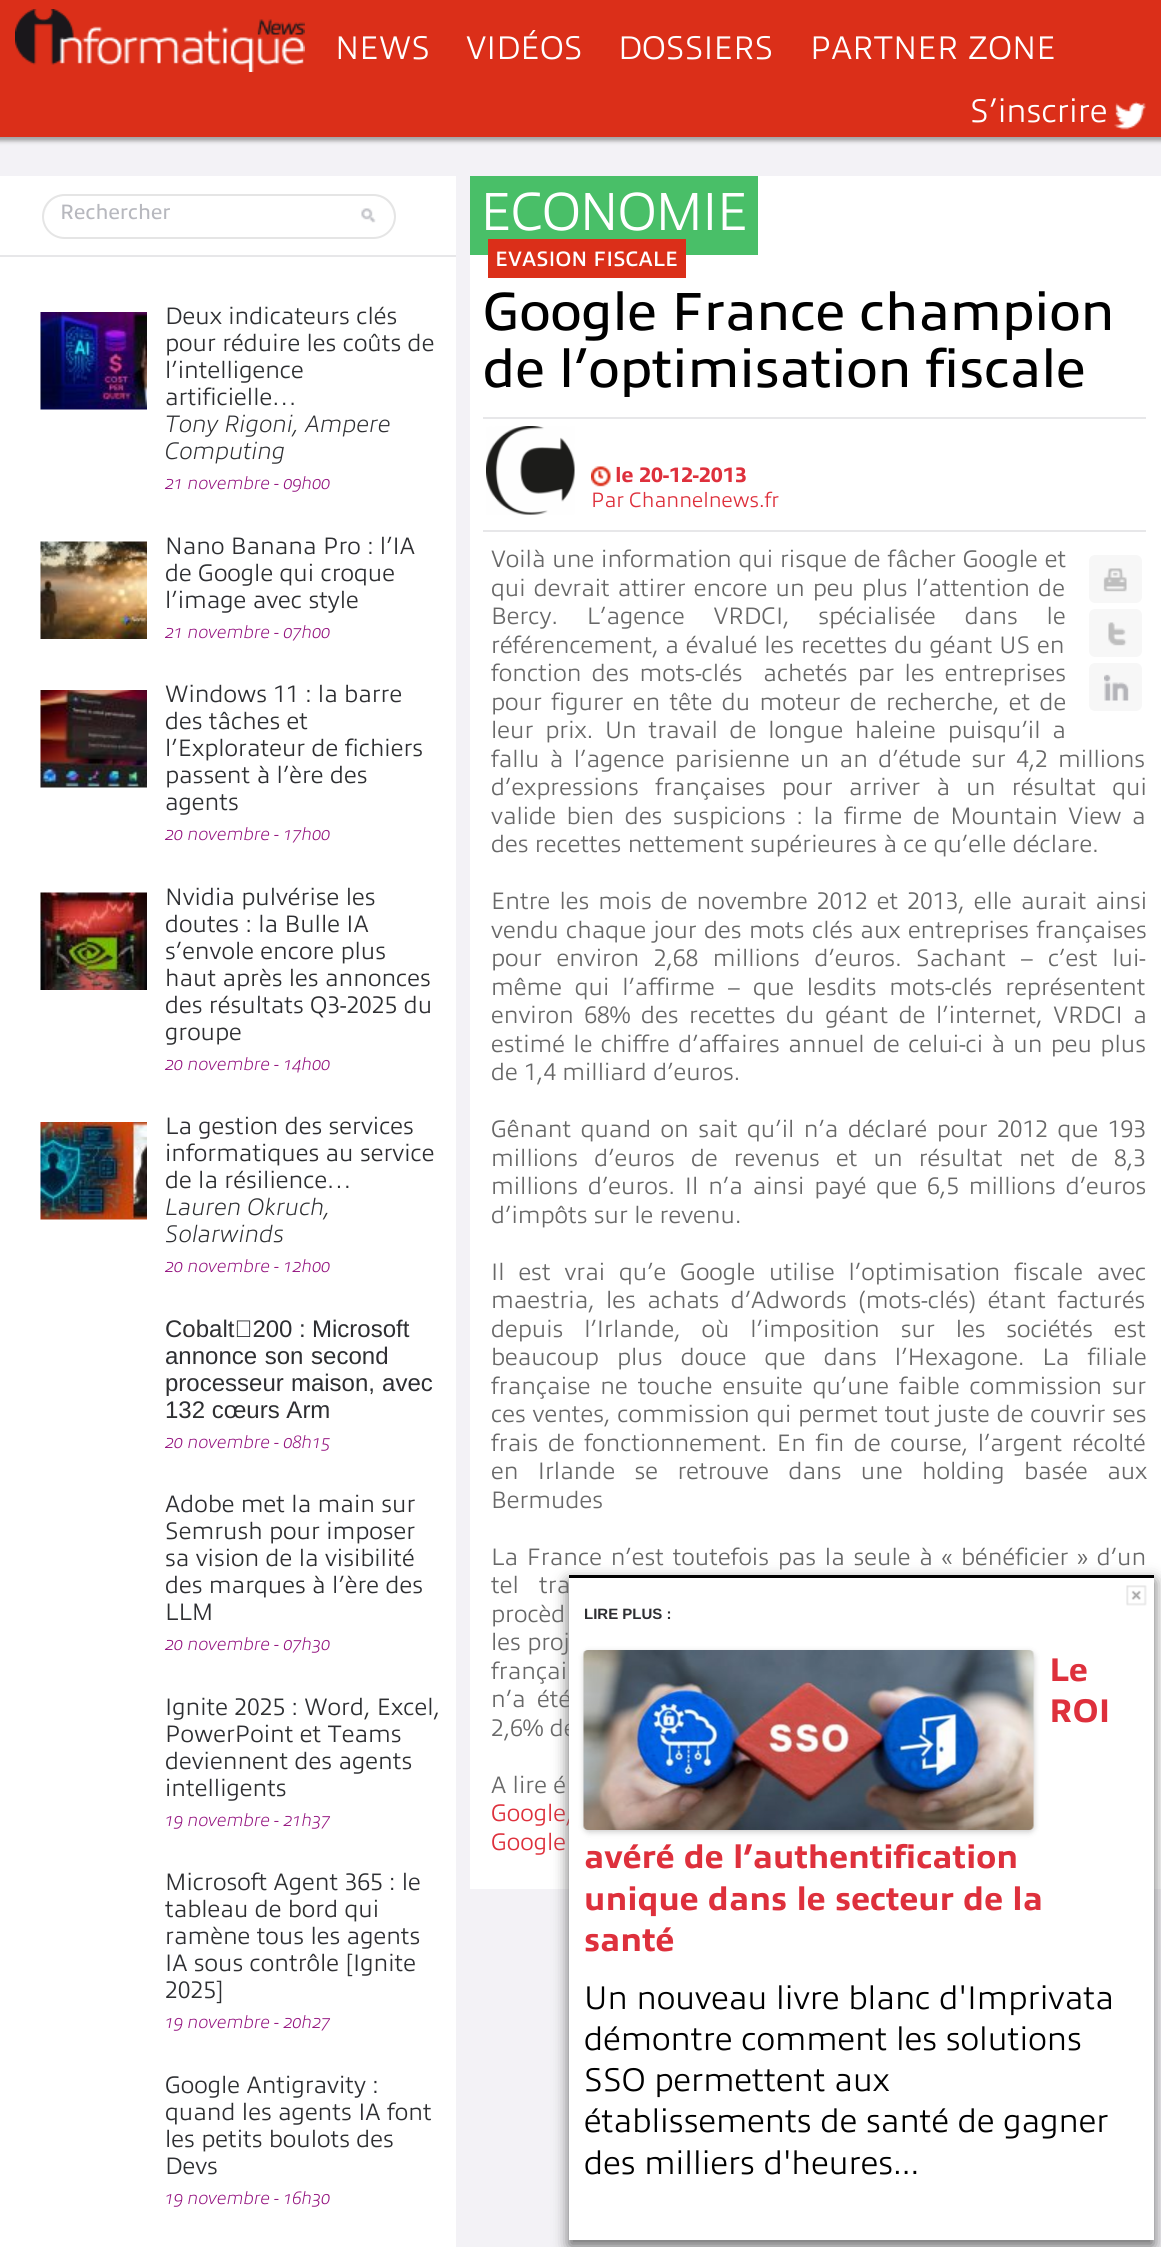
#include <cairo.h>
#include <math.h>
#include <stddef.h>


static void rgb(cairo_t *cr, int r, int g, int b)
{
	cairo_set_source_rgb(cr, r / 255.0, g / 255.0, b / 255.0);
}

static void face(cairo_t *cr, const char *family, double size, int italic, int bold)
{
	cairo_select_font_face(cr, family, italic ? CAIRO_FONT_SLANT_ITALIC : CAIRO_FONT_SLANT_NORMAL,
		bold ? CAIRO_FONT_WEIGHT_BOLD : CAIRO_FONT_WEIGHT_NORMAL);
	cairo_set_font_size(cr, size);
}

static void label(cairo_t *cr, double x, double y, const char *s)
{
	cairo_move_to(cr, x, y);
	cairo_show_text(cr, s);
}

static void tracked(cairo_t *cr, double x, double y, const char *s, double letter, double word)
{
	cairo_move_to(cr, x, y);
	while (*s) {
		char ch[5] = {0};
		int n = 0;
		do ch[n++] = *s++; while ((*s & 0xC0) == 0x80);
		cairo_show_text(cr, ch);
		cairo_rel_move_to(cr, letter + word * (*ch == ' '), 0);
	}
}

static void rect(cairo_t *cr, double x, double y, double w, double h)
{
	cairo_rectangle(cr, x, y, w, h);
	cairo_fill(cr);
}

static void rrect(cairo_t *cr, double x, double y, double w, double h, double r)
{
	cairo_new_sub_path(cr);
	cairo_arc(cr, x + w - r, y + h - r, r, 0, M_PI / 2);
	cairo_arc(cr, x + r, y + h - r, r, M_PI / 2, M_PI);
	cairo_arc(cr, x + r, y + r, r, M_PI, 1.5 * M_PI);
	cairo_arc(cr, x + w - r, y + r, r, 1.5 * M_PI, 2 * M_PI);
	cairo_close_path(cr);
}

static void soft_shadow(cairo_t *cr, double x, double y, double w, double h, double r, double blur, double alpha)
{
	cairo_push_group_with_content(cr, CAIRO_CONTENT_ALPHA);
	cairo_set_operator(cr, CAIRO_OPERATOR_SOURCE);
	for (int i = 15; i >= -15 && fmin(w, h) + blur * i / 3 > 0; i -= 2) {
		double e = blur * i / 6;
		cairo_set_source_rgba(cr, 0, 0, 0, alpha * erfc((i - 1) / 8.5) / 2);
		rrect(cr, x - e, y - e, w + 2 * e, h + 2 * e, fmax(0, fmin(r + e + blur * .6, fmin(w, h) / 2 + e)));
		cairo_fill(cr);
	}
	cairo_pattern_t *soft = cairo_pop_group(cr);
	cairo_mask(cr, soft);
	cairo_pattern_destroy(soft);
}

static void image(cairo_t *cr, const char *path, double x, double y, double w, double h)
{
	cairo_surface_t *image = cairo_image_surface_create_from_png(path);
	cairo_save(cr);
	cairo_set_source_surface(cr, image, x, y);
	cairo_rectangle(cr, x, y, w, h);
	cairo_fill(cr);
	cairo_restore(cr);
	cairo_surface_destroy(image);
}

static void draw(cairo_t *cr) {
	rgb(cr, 243, 242, 246);
	cairo_paint(cr);
	rgb(cr, 163, 163, 164);
	soft_shadow(cr, -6, -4, 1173, 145, 0, 2, 1);
	rgb(cr, 219, 47, 25);
	rect(cr, 0, 0, 1161, 137);
	image(cr, "image0.png", 15, 9, 290, 63);
	face(cr, "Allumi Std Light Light", 33, 0, 0);
	rgb(cr, 255, 255, 255);
	label(cr, 335, 59, "NEWS");
	label(cr, 466, 59, "VIDÉOS");
	label(cr, 618, 59, "DOSSIERS");
	label(cr, 810, 59, "PARTNER ZONE");
	label(cr, 970, 122, "S’inscrire");
	image(cr, "image1.png", 1114, 101, 32, 29);
	rect(cr, 0, 176, 456, 2071);
	rgb(cr, 231, 231, 233);
	rect(cr, 0, 255, 456, 2);
	rgb(cr, 242, 242, 242);
	cairo_new_path(cr);
	cairo_move_to(cr, 64, 196);
	cairo_line_to(cr, 374, 196);
	cairo_curve_to(cr, 385, 196, 394, 206, 394, 218);
	cairo_curve_to(cr, 394, 221, 393, 225, 392, 227);
	cairo_curve_to(cr, 394, 224, 395, 220, 395, 216);
	cairo_curve_to(cr, 395, 204, 386, 195, 374, 195);
	cairo_line_to(cr, 65, 195);
	cairo_curve_to(cr, 53, 195, 44, 204, 44, 216);
	cairo_line_to(cr, 44, 217);
	cairo_curve_to(cr, 45, 205, 53, 196, 64, 196);
	cairo_close_path(cr);
	cairo_fill(cr);
	rrect(cr, 43, 195, 352, 43, 21.5);
	rgb(cr, 229, 229, 229);
	cairo_stroke(cr);
	face(cr, "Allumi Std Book", 21, 0, 0);
	rgb(cr, 183, 184, 190);
	label(cr, 60, 219, "Rechercher");
	image(cr, "image2.png", 361, 208, 15, 15);
	image(cr, "image3.png", 40, 312, 107, 98);
	face(cr, "Allumi Std Light Light", 24, 0, 0);
	rgb(cr, 46, 47, 50);
	label(cr, 165, 324, "Deux indicateurs clés");
	label(cr, 165, 351, "pour réduire les coûts de");
	label(cr, 165, 378, "l’intelligence");
	label(cr, 165, 405, "artificielle…");
	face(cr, "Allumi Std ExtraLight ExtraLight", 24, 1, 0);
	label(cr, 165, 432, "Tony Rigoni, Ampere");
	label(cr, 165, 459, "Computing");
	face(cr, "Allumi Std ExtraLight ExtraLight", 18, 1, 0);
	rgb(cr, 147, 17, 126);
	label(cr, 165, 489, "21 novembre - 09h00");
	image(cr, "image4.png", 40, 541, 107, 98);
	face(cr, "Allumi Std Light Light", 24, 0, 0);
	rgb(cr, 46, 47, 50);
	label(cr, 165, 554, "Nano Banana Pro : l’IA");
	label(cr, 165, 581, "de Google qui croque");
	label(cr, 165, 608, "l’image avec style");
	face(cr, "Allumi Std ExtraLight ExtraLight", 18, 1, 0);
	rgb(cr, 147, 17, 126);
	label(cr, 165, 638, "21 novembre - 07h00");
	image(cr, "image5.png", 40, 690, 107, 98);
	face(cr, "Allumi Std Light Light", 24, 0, 0);
	rgb(cr, 46, 47, 50);
	label(cr, 165, 702, "Windows 11 : la barre");
	label(cr, 165, 729, "des tâches et");
	label(cr, 165, 756, "l’Explorateur de fichiers");
	label(cr, 165, 783, "passent à l’ère des");
	label(cr, 165, 810, "agents");
	face(cr, "Allumi Std ExtraLight ExtraLight", 18, 1, 0);
	rgb(cr, 147, 17, 126);
	label(cr, 165, 840, "20 novembre - 17h00");
	image(cr, "image6.png", 40, 892, 107, 98);
	face(cr, "Allumi Std Light Light", 24, 0, 0);
	rgb(cr, 46, 47, 50);
	label(cr, 165, 905, "Nvidia pulvérise les");
	label(cr, 165, 932, "doutes : la Bulle IA");
	label(cr, 165, 959, "s’envole encore plus");
	label(cr, 165, 986, "haut après les annonces");
	label(cr, 165, 1013, "des résultats Q3-2025 du");
	label(cr, 165, 1040, "groupe");
	face(cr, "Allumi Std ExtraLight ExtraLight", 18, 1, 0);
	rgb(cr, 147, 17, 126);
	label(cr, 165, 1070, "20 novembre - 14h00");
	image(cr, "image7.png", 40, 1122, 107, 98);
	face(cr, "Allumi Std Light Light", 24, 0, 0);
	rgb(cr, 46, 47, 50);
	label(cr, 165, 1134, "La gestion des services");
	label(cr, 165, 1161, "informatiques au service");
	label(cr, 165, 1188, "de la résilience…");
	face(cr, "Allumi Std ExtraLight ExtraLight", 24, 1, 0);
	label(cr, 165, 1215, "Lauren Okruch,");
	label(cr, 165, 1242, "Solarwinds");
	face(cr, "Allumi Std ExtraLight ExtraLight", 18, 1, 0);
	rgb(cr, 147, 17, 126);
	label(cr, 165, 1272, "20 novembre - 12h00");
	face(cr, "Liberation Sans", 24, 0, 0);
	rgb(cr, 46, 47, 50);
	tracked(cr, 165, 1337, "Cobalt‑200", 0, 2);
	tracked(cr, 299, 1337, ":", 0, 2);
	tracked(cr, 312, 1337, "Microsoft", 0, 2);
	tracked(cr, 165, 1364, "annonce son second", 0, 1);
	tracked(cr, 165, 1391, "processeur maison, avec", 0, 0.5);
	label(cr, 165, 1418, "132 cœurs Arm");
	face(cr, "Allumi Std ExtraLight ExtraLight", 18, 1, 0);
	rgb(cr, 147, 17, 126);
	label(cr, 165, 1448, "20 novembre - 08h15");
	face(cr, "Allumi Std Light Light", 24, 0, 0);
	rgb(cr, 46, 47, 50);
	label(cr, 165, 1512, "Adobe met la main sur");
	label(cr, 165, 1539, "Semrush pour imposer");
	label(cr, 165, 1566, "sa vision de la visibilité");
	label(cr, 165, 1593, "des marques à l’ère des");
	label(cr, 165, 1620, "LLM");
	face(cr, "Allumi Std ExtraLight ExtraLight", 18, 1, 0);
	rgb(cr, 147, 17, 126);
	label(cr, 165, 1650, "20 novembre - 07h30");
	face(cr, "Allumi Std Light Light", 24, 0, 0);
	rgb(cr, 46, 47, 50);
	label(cr, 165, 1715, "Ignite 2025 : Word, Excel,");
	label(cr, 165, 1742, "PowerPoint et Teams");
	label(cr, 165, 1769, "deviennent des agents");
	label(cr, 165, 1796, "intelligents");
	face(cr, "Allumi Std ExtraLight ExtraLight", 18, 1, 0);
	rgb(cr, 147, 17, 126);
	label(cr, 165, 1826, "19 novembre - 21h37");
	face(cr, "Allumi Std Light Light", 24, 0, 0);
	rgb(cr, 46, 47, 50);
	label(cr, 165, 1890, "Microsoft Agent 365 : le");
	label(cr, 165, 1917, "tableau de bord qui");
	label(cr, 165, 1944, "ramène tous les agents");
	label(cr, 165, 1971, "IA sous contrôle [Ignite");
	label(cr, 165, 1998, "2025]");
	face(cr, "Allumi Std ExtraLight ExtraLight", 18, 1, 0);
	rgb(cr, 147, 17, 126);
	label(cr, 165, 2028, "19 novembre - 20h27");
	face(cr, "Allumi Std Light Light", 24, 0, 0);
	rgb(cr, 46, 47, 50);
	label(cr, 165, 2093, "Google Antigravity :");
	label(cr, 165, 2120, "quand les agents IA font");
	label(cr, 165, 2147, "les petits boulots des");
	label(cr, 165, 2174, "Devs");
	face(cr, "Allumi Std ExtraLight ExtraLight", 18, 1, 0);
	rgb(cr, 147, 17, 126);
	label(cr, 165, 2204, "19 novembre - 16h30");
	rgb(cr, 255, 255, 255);
	rect(cr, 470, 176, 691, 1713);
	rgb(cr, 73, 191, 104);
	rect(cr, 470, 176, 288, 79);
	face(cr, "Allumi Std Light Light", 54, 0, 0);
	rgb(cr, 255, 255, 255);
	tracked(cr, 480, 230, "ECONOMIE", -1.5, 0);
	rgb(cr, 219, 47, 25);
	rect(cr, 488, 239, 198, 39);
	face(cr, "Allumi Std Light", 21, 0, 1);
	rgb(cr, 255, 255, 255);
	label(cr, 495, 266, "EVASION FISCALE");
	face(cr, "Allumi Std Book", 54, 0, 0);
	rgb(cr, 0, 0, 0);
	label(cr, 483, 330, "Google France champion");
	label(cr, 483, 387, "de l’optimisation fiscale");
	rgb(cr, 231, 231, 233);
	rect(cr, 483, 417, 663, 2);
	rect(cr, 483, 530, 663, 2);
	image(cr, "image8.png", 486, 426, 89, 89);
	image(cr, "image9.png", 591, 466, 20, 21);
	face(cr, "Allumi Std Book ExtraBold", 21, 0, 0);
	rgb(cr, 222, 48, 60);
	label(cr, 615, 482, "le");
	label(cr, 639, 482, "20-12-2013");
	face(cr, "Allumi Std Light Light", 21, 0, 0);
	label(cr, 591, 507, "Par");
	label(cr, 629, 507, "Channelnews.fr");
	face(cr, "Allumi Std Light Light", 24, 0, 0);
	rgb(cr, 104, 104, 104);
	tracked(cr, 491, 567, "Voilà une information qui risque de fâcher Google et", 0, 0.5);
	tracked(cr, 491, 596, "qui devrait attirer encore un peu plus l’attention de", 0, 1.75);
	tracked(cr, 491, 624, "Bercy. L’agence VRDCI, spécialisée dans le", 0, 22.5);
	tracked(cr, 491, 653, "référencement, a évalué les recettes du géant US en", 0, 0.5);
	tracked(cr, 491, 681, "fonction des mots-clés  achetés par les entreprises", 0, 4);
	tracked(cr, 491, 710, "pour figurer en tête du moteur de recherche, et de", 0, 3);
	tracked(cr, 491, 738, "leur prix. Un travail de longue haleine puisqu’il a", 0, 5.5);
	tracked(cr, 491, 767, "fallu à l’agence parisienne un an d’étude sur 4,2 millions", 0, 4);
	tracked(cr, 491, 795, "d’expressions françaises pour arriver à un résultat qui", 0, 10);
	tracked(cr, 491, 824, "valide bien des suspicions : la firme de Mountain View a", 0, 4.25);
	label(cr, 491, 852, "des recettes nettement supérieures à ce qu’elle déclare.");
	rgb(cr, 247, 247, 247);
	rrect(cr, 1089, 555, 53, 48, 6);
	cairo_fill(cr);
	image(cr, "image10.png", 1103, 568, 24, 24);
	rrect(cr, 1089, 609, 53, 48, 6);
	cairo_fill(cr);
	image(cr, "image11.png", 1108, 622, 19, 24);
	rrect(cr, 1089, 663, 53, 48, 6);
	cairo_fill(cr);
	image(cr, "image12.png", 1104, 674, 25, 27);
	rgb(cr, 104, 104, 104);
	tracked(cr, 491, 909, "Entre les mois de novembre 2012 et 2013, elle aurait ainsi", 0, 2.75);
	tracked(cr, 491, 938, "vendu chaque jour des mots clés aux entreprises françaises", 0, 1);
	tracked(cr, 491, 966, "pour environ 2,68 millions d’euros. Sachant – c’est lui-", 0, 8.25);
	tracked(cr, 491, 995, "même qui l’affirme – que lesdits mots-clés représentent", 0, 6.5);
	tracked(cr, 491, 1023, "environ 68% des recettes du géant de l’internet, VRDCI a", 0, 4.25);
	tracked(cr, 491, 1052, "estimé le chiffre d’affaires annuel de celui-ci à un peu plus", 0, 2);
	label(cr, 491, 1080, "de 1,4 milliard d’euros.");
	tracked(cr, 491, 1137, "Gênant quand on sait qu’il n’a déclaré pour 2012 que 193", 0, 3.1);
	tracked(cr, 491, 1166, "millions d’euros de revenus et un résultat net de 8,3", 0, 9.75);
	tracked(cr, 491, 1194, "millions d’euros. Il n’a ainsi payé que 6,5 millions d’euros", 0, 3.5);
	label(cr, 491, 1223, "d’impôts sur le revenu.");
	tracked(cr, 491, 1280, "Il est vrai qu’e Google utilise l’optimisation fiscale avec", 0, 7.5);
	tracked(cr, 491, 1308, "maestria, les achats d’Adwords (mots-clés) étant facturés", 0, 5);
	tracked(cr, 491, 1337, "depuis l’Irlande, où l’imposition sur les sociétés est", 0, 14.5);
	tracked(cr, 491, 1365, "beaucoup plus douce que dans l’Hexagone. La filiale", 0, 11.75);
	tracked(cr, 491, 1394, "française ne touche ensuite qu’une faible commission sur", 0, 3.5);
	tracked(cr, 491, 1422, "ces ventes, commission qui permet tout juste de couvrir ses", 0, 0.5);
	tracked(cr, 491, 1451, "frais de fonctionnement. En fin de course, l’argent récolté", 0, 3.25);
	tracked(cr, 491, 1479, "en Irlande se retrouve dans une holding basée aux", 0, 13);
	label(cr, 491, 1508, "Bermudes");
	tracked(cr, 491, 1565, "La France n’est toutefois pas la seule à « bénéficier » d’un", 0, 2.4);
	tracked(cr, 491, 1593, "tel tra", 0, 14);
	tracked(cr, 491, 1622, "procèd", 0, 3);
	label(cr, 491, 1650, "les proj");
	tracked(cr, 491, 1679, "françai", 0, 2);
	tracked(cr, 491, 1707, "n’a été", 0, 5);
	label(cr, 491, 1736, "2,6% de");
	label(cr, 491, 1793, "A lire é");
	rgb(cr, 222, 48, 60);
	label(cr, 491, 1821, "Google,");
	label(cr, 491, 1850, "Google");
	rgb(cr, 102, 102, 102);
	soft_shadow(cr, 569, 1581, 585, 665, 0, 7.5, 1);
	rgb(cr, 255, 255, 255);
	rect(cr, 569, 1578, 585, 662);
	rgb(cr, 0, 0, 0);
	rect(cr, 569, 1575, 585, 3);
	image(cr, "image13.png", 1126, 1585, 21, 21);
	face(cr, "Liberation Sans", 15, 0, 1);
	rgb(cr, 46, 47, 50);
	label(cr, 584, 1619, "LIRE PLUS :");
	rgb(cr, 0, 0, 0);
	soft_shadow(cr, 584, 1652, 450, 180, 5, 3, 0.2);
	image(cr, "image14.png", 583, 1650, 451, 180);
	face(cr, "Allumi Std Book ExtraBold", 33, 0, 0);
	rgb(cr, 222, 48, 60);
	label(cr, 1049, 1681, "Le");
	label(cr, 1049, 1722, "ROI");
	label(cr, 584, 1868, "avéré de l’authentification");
	label(cr, 584, 1910, "unique dans le secteur de la");
	label(cr, 584, 1951, "santé");
	face(cr, "Allumi Std Light Light", 33, 0, 0);
	rgb(cr, 0, 0, 0);
	label(cr, 584, 2009, "Un nouveau livre blanc d'Imprivata");
	label(cr, 584, 2050, "démontre comment les solutions");
	label(cr, 584, 2091, "SSO permettent aux");
	label(cr, 584, 2132, "établissements de santé de gagner");
	label(cr, 584, 2174, "des milliers d'heures...");
}

int main(void) {
	cairo_surface_t *surface = cairo_image_surface_create(CAIRO_FORMAT_RGB24, 1161, 2247);
	cairo_t *cr = cairo_create(surface);
	cairo_font_options_t *options = cairo_font_options_create();
	cairo_font_options_set_hint_metrics(options, CAIRO_HINT_METRICS_OFF);
	cairo_font_options_set_hint_style(options, CAIRO_HINT_STYLE_NONE);
	cairo_set_font_options(cr, options);
	cairo_set_miter_limit(cr, 4);
	draw(cr);
	cairo_surface_write_to_png(surface, "render.png");
	cairo_font_options_destroy(options);
	cairo_destroy(cr);
	cairo_surface_destroy(surface);
	return 0;
}
